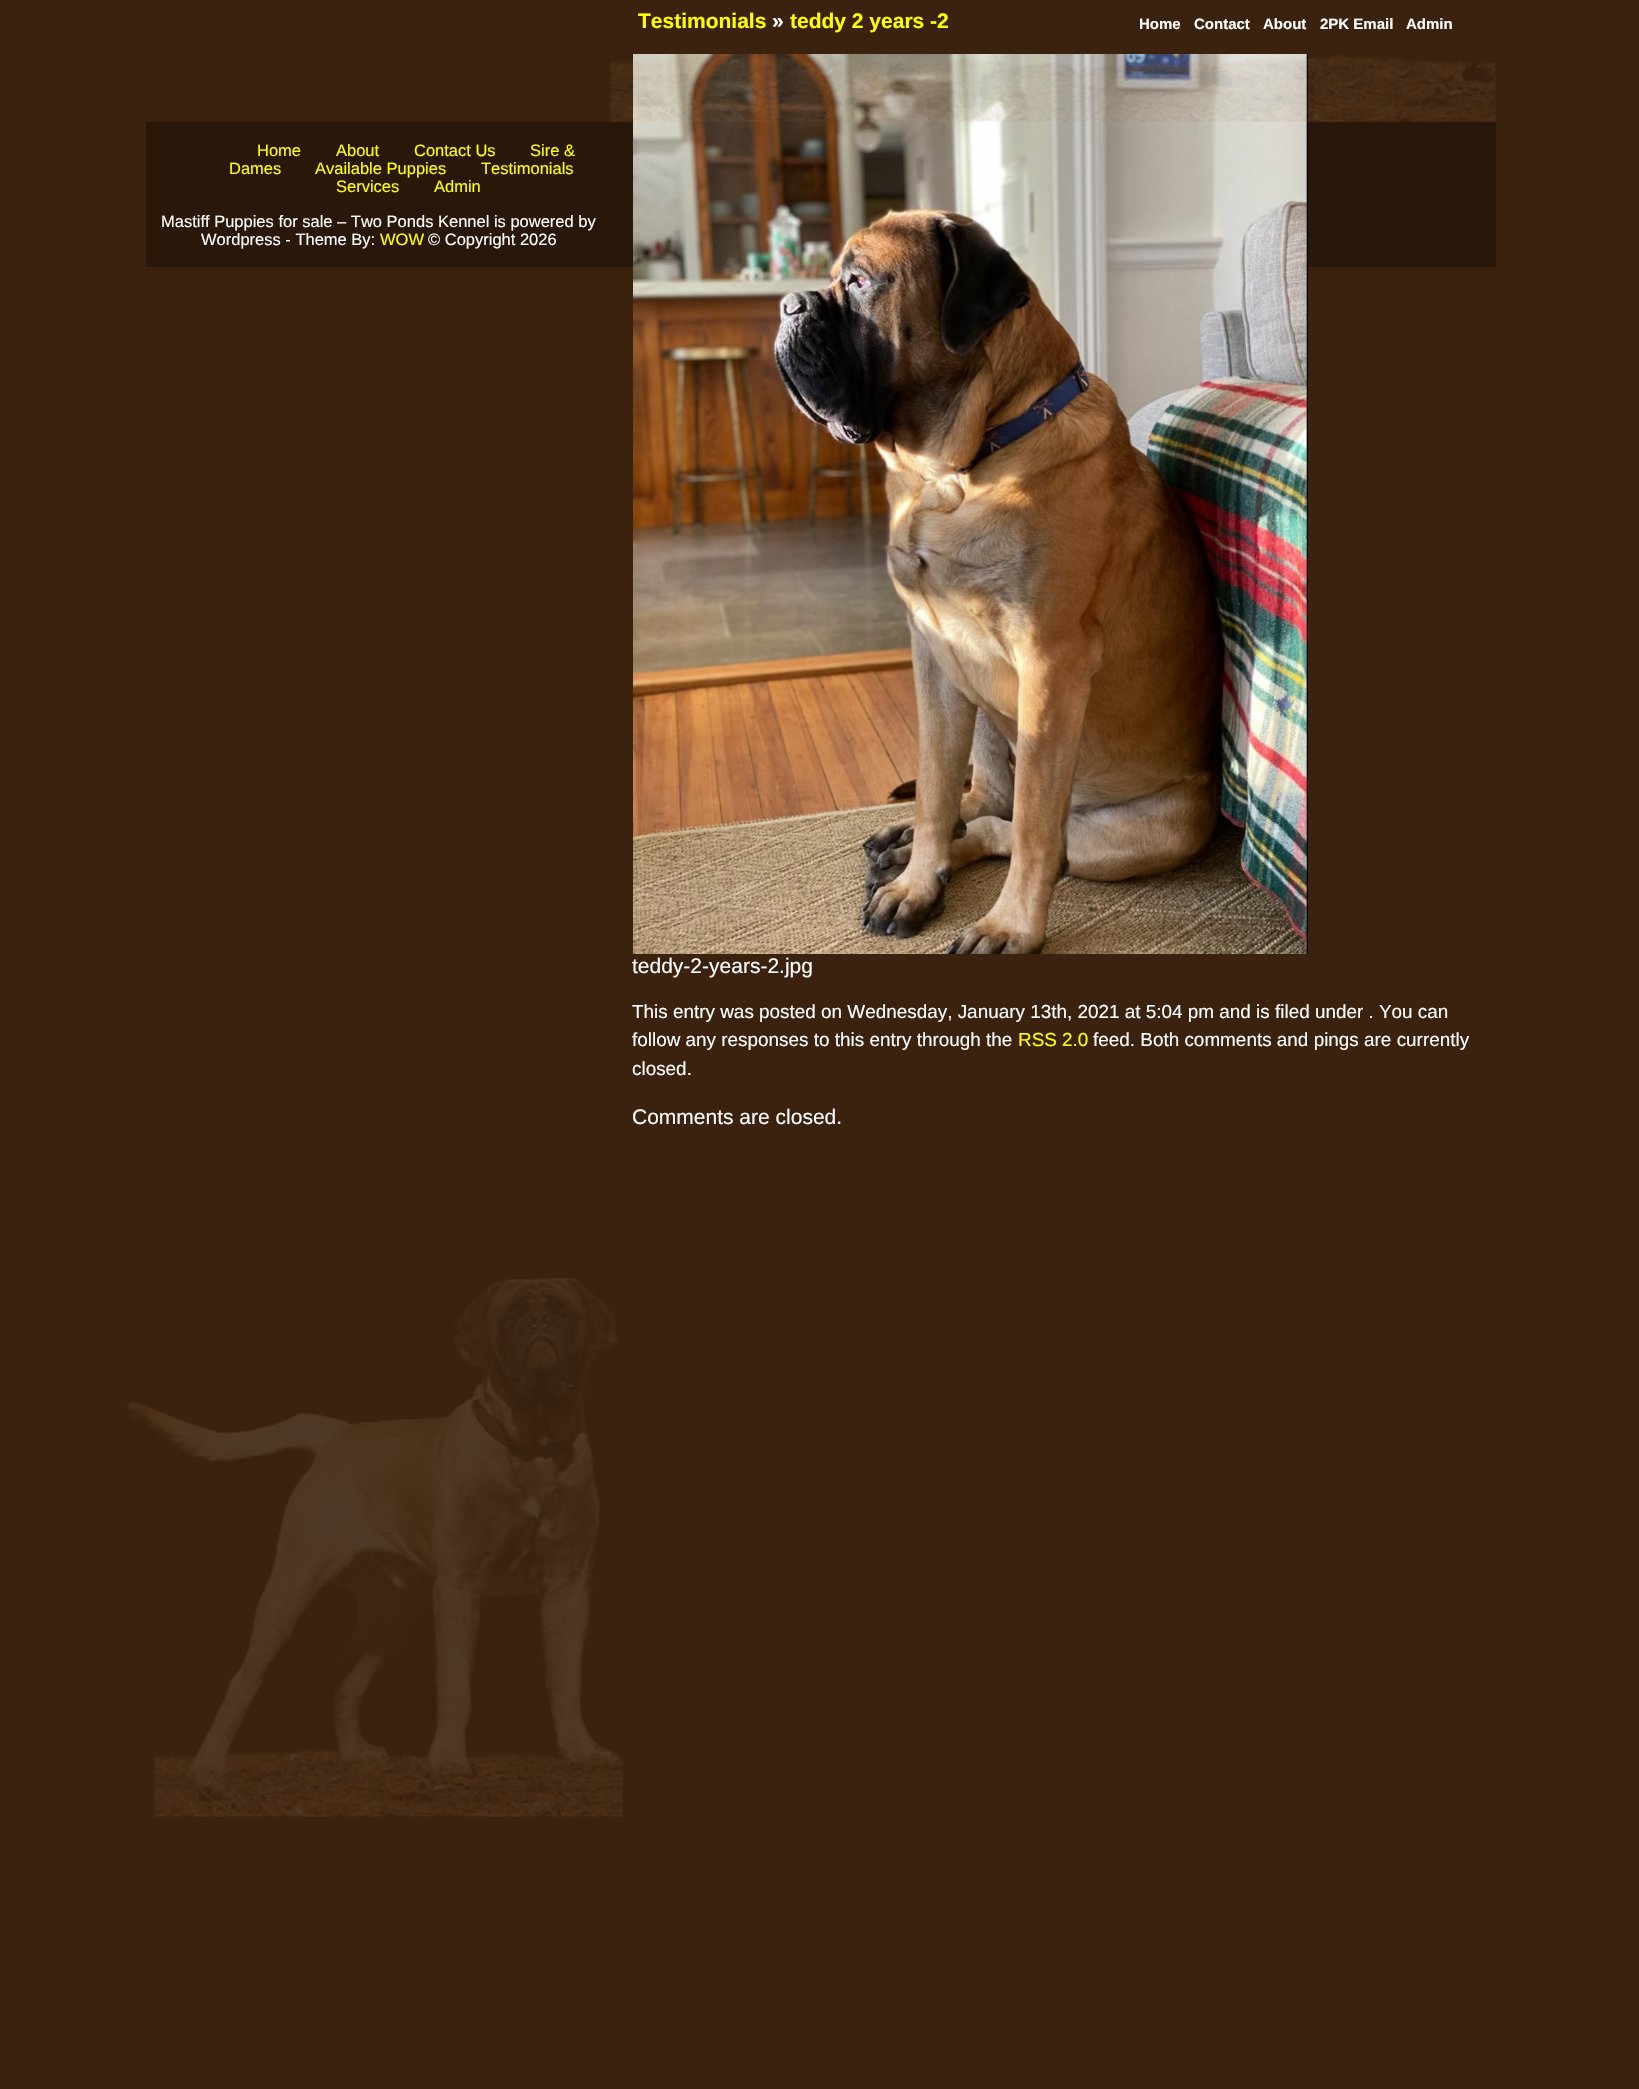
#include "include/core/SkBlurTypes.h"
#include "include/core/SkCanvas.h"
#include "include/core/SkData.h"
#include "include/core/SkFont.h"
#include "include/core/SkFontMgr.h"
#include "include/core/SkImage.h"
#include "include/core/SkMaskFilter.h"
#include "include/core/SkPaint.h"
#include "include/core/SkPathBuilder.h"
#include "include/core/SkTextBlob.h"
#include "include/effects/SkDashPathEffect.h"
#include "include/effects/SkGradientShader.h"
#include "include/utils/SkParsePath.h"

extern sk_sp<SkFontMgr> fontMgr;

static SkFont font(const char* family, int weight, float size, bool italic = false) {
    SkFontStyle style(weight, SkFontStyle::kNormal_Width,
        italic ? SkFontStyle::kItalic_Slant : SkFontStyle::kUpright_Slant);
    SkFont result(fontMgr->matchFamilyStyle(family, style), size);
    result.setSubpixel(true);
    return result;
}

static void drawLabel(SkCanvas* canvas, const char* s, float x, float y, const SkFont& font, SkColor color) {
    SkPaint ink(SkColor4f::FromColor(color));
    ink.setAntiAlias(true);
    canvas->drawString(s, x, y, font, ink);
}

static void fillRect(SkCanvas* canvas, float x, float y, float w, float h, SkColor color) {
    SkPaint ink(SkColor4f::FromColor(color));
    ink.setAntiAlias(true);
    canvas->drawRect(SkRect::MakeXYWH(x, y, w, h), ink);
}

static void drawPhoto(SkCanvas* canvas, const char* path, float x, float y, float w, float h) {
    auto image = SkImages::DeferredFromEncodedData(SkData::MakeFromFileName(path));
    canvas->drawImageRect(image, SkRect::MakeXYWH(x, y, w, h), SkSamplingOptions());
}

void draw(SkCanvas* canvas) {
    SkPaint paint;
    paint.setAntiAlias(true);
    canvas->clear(0xFF3B220E);
    SkFont font1 = font("Liberation Sans", 700, 21);
    drawLabel(canvas, "Testimonials", 638, 28, font1, 0xFFFFFF00);
    drawLabel(canvas, "»", 772, 28, font1, 0xFFFFFFFF);
    drawLabel(canvas, "teddy 2 years -2", 790, 28, font1, 0xFFFFFF00);
    fillRect(canvas, 146, 122, 1350, 145, 0xFF29180A);
    drawPhoto(canvas, "assets/img1.png", 633, 54, 675, 900);
    SkFont font2 = font("Liberation Sans", 400, 21);
    drawLabel(canvas, "teddy-2-years-2.jpg", 632, 973, font2, 0xFFFFFFFF);
    SkFont font3 = font("Liberation Sans", 400, 18.9f);
    drawLabel(canvas, "This entry was posted on Wednesday, January 13th, 2021 at 5:04 pm and is filed under . You can", 632, 1018, font3, 0xFFFFFFFF);
    drawLabel(canvas, "follow any responses to this entry through the", 632, 1046, font3, 0xFFFFFFFF);
    drawLabel(canvas, "RSS 2.0", 1018, 1046, font3, 0xFFFFFF00);
    drawLabel(canvas, "feed. Both comments and pings are currently", 1093, 1046, font3, 0xFFFFFFFF);
    drawLabel(canvas, "closed.", 632, 1075, font3, 0xFFFFFFFF);
    drawLabel(canvas, "Comments are closed.", 632, 1124, font2, 0xFFFFFFFF);
    SkFont font4 = font("Liberation Sans", 700, 15);
    drawLabel(canvas, "Home", 1139, 29, font4, 0xFFFFFFFF);
    drawLabel(canvas, "Contact", 1194, 29, font4, 0xFFFFFFFF);
    drawLabel(canvas, "About", 1263, 29, font4, 0xFFFFFFFF);
    drawLabel(canvas, "2PK Email", 1320, 29, font4, 0xFFFFFFFF);
    drawLabel(canvas, "Admin", 1406, 29, font4, 0xFFFFFFFF);
    drawPhoto(canvas, "assets/img2.png", 610, 55, 886, 67);
    drawPhoto(canvas, "assets/img3.png", 126, 1278, 497, 539);
    SkFont font5 = font("Liberation Sans", 400, 16.5f);
    drawLabel(canvas, "Home", 257, 156, font5, 0xFFFFFF00);
    drawLabel(canvas, "About", 336, 156, font5, 0xFFFFFF00);
    drawLabel(canvas, "Contact Us", 414, 156, font5, 0xFFFFFF00);
    drawLabel(canvas, "Sire &", 530, 156, font5, 0xFFFFFF00);
    drawLabel(canvas, "Dames", 229, 174, font5, 0xFFFFFF00);
    drawLabel(canvas, "Available Puppies", 315, 174, font5, 0xFFFFFF00);
    drawLabel(canvas, "Testimonials", 481, 174, font5, 0xFFFFFF00);
    drawLabel(canvas, "Services", 336, 192, font5, 0xFFFFFF00);
    drawLabel(canvas, "Admin", 434, 192, font5, 0xFFFFFF00);
    drawLabel(canvas, "Mastiff Puppies for sale – Two Ponds Kennel is powered by", 161, 227, font5, 0xFFFFFFFF);
    drawLabel(canvas, "Wordpress - Theme By:", 201, 245, font5, 0xFFFFFFFF);
    drawLabel(canvas, "WOW", 380, 245, font5, 0xFFFFFF00);
    drawLabel(canvas, "© Copyright 2026", 428, 245, font5, 0xFFFFFFFF);
}
